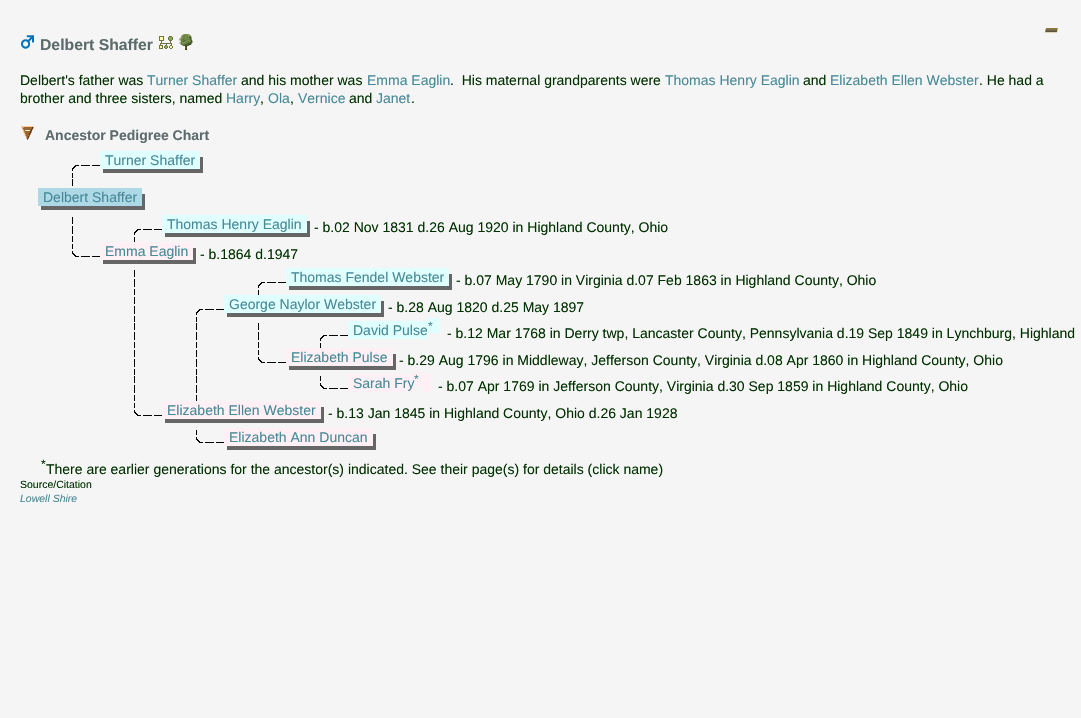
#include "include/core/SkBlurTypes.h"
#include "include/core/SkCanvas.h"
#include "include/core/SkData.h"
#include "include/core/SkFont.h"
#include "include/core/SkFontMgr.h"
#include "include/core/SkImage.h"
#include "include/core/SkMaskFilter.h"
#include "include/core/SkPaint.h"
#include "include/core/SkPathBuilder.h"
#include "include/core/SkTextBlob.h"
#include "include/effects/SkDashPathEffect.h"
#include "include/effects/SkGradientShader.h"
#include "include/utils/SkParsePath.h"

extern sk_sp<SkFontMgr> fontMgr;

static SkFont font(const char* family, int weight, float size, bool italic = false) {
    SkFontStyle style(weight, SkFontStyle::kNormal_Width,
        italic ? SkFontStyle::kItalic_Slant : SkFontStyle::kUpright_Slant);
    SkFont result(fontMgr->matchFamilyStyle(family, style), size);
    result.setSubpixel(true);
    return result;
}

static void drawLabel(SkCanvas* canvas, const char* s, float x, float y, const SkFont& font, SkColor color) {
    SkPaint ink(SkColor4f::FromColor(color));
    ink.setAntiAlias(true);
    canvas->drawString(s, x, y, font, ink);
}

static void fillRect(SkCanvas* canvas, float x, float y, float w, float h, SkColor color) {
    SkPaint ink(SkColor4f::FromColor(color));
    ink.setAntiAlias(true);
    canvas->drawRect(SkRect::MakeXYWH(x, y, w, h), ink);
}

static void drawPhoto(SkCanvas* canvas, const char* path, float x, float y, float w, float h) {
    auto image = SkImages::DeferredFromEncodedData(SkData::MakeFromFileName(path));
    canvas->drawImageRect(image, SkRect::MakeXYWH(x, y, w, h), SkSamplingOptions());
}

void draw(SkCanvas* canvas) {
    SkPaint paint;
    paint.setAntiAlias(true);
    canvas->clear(0xFFF5F5F5);
    drawPhoto(canvas, "assets/img1.png", 1045, 28, 13, 5);
    drawPhoto(canvas, "assets/img2.png", 21, 35, 13, 14);
    SkFont font1 = font("Liberation Sans", 700, 15.75f);
    drawLabel(canvas, "Delbert Shaffer", 40, 50, font1, 0xFF5D6B6C);
    drawPhoto(canvas, "assets/img3.png", 159, 36, 14, 13);
    drawPhoto(canvas, "assets/img4.png", 179, 34, 14, 16);
    SkFont font2 = font("Liberation Sans", 400, 14);
    drawLabel(canvas, "Delbert's father was", 20, 85, font2, 0xFF003000);
    drawLabel(canvas, "Turner Shaffer", 147, 85, font2, 0xFF478997);
    drawLabel(canvas, "and his mother was", 241, 85, font2, 0xFF003000);
    drawLabel(canvas, "Emma Eaglin", 367, 85, font2, 0xFF478997);
    drawLabel(canvas, ".  His maternal grandparents were", 450, 85, font2, 0xFF003000);
    drawLabel(canvas, "Thomas Henry Eaglin", 665, 85, font2, 0xFF478997);
    drawLabel(canvas, "and", 803, 85, font2, 0xFF003000);
    drawLabel(canvas, "Elizabeth Ellen Webster", 830, 85, font2, 0xFF478997);
    drawLabel(canvas, ". He had a", 979, 85, font2, 0xFF003000);
    drawLabel(canvas, "brother and three sisters, named", 20, 103, font2, 0xFF003000);
    drawLabel(canvas, "Harry", 226, 103, font2, 0xFF478997);
    drawLabel(canvas, ",", 260, 103, font2, 0xFF003000);
    drawLabel(canvas, "Ola", 268, 103, font2, 0xFF478997);
    drawLabel(canvas, ",", 290, 103, font2, 0xFF003000);
    drawLabel(canvas, "Vernice", 298, 103, font2, 0xFF478997);
    drawLabel(canvas, "and", 349, 103, font2, 0xFF003000);
    drawLabel(canvas, "Janet", 376, 103, font2, 0xFF478997);
    drawLabel(canvas, ".", 411, 103, font2, 0xFF003000);
    drawPhoto(canvas, "assets/img5.png", 21, 126, 13, 14);
    SkFont font3 = font("Liberation Sans", 700, 14);
    drawLabel(canvas, "Ancestor Pedigree Chart", 45, 140, font3, 0xFF5D6B6C);
    fillRect(canvas, 103, 157, 100, 16, 0xFF666666);
    fillRect(canvas, 100, 151, 100, 18, 0xFFE0FFFF);
    drawLabel(canvas, "Turner Shaffer", 105, 165, font2, 0xFF478997);
    drawPhoto(canvas, "assets/img6.png", 72, 165, 28, 13);
    drawPhoto(canvas, "assets/img7.png", 72, 179, 1, 7);
    fillRect(canvas, 41, 194, 104, 16, 0xFF666666);
    fillRect(canvas, 38, 188, 104, 18, 0xFFADD8E6);
    drawLabel(canvas, "Delbert Shaffer", 43, 202, font2, 0xFF478997);
    drawPhoto(canvas, "assets/img8.png", 72, 217, 1, 25);
    drawPhoto(canvas, "assets/img6.png", 134, 229, 28, 13);
    fillRect(canvas, 165, 221, 145, 16, 0xFF666666);
    fillRect(canvas, 162, 215, 145, 18, 0xFFE0FFFF);
    drawLabel(canvas, "Thomas Henry Eaglin", 167, 229, font2, 0xFF478997);
    drawLabel(canvas, "- b.02 Nov 1831 d.26 Aug 1920 in Highland County, Ohio", 314, 232, font2, 0xFF003000);
    drawPhoto(canvas, "assets/img9.png", 72, 244, 28, 13);
    fillRect(canvas, 103, 248, 93, 16, 0xFF666666);
    fillRect(canvas, 100, 242, 93, 18, 0xFFFFF0F5);
    drawLabel(canvas, "Emma Eaglin", 105, 256, font2, 0xFF478997);
    drawLabel(canvas, "- b.1864 d.1947", 200, 259, font2, 0xFF003000);
    drawPhoto(canvas, "assets/img8.png", 134, 270, 1, 25);
    drawPhoto(canvas, "assets/img6.png", 258, 282, 28, 13);
    fillRect(canvas, 289, 274, 163, 16, 0xFF666666);
    fillRect(canvas, 286, 268, 163, 18, 0xFFE0FFFF);
    drawLabel(canvas, "Thomas Fendel Webster", 291, 282, font2, 0xFF478997);
    drawLabel(canvas, "- b.07 May 1790 in Virginia d.07 Feb 1863 in Highland County, Ohio", 456, 285, font2, 0xFF003000);
    drawPhoto(canvas, "assets/img8.png", 134, 297, 1, 25);
    drawPhoto(canvas, "assets/img6.png", 196, 309, 28, 13);
    fillRect(canvas, 227, 301, 157, 16, 0xFF666666);
    fillRect(canvas, 224, 295, 157, 18, 0xFFE0FFFF);
    drawLabel(canvas, "George Naylor Webster", 229, 309, font2, 0xFF478997);
    drawLabel(canvas, "- b.28 Aug 1820 d.25 May 1897", 388, 312, font2, 0xFF003000);
    drawPhoto(canvas, "assets/img8.png", 134, 323, 1, 25);
    drawPhoto(canvas, "assets/img8.png", 196, 323, 1, 25);
    drawPhoto(canvas, "assets/img8.png", 258, 323, 1, 25);
    drawPhoto(canvas, "assets/img6.png", 320, 335, 28, 13);
    fillRect(canvas, 348, 321, 80, 18, 0xFFE0FFFF);
    drawLabel(canvas, "David Pulse", 353, 335, font2, 0xFF478997);
    fillRect(canvas, 428, 318, 12, 15, 0xFFE0FFFF);
    SkFont font4 = font("Liberation Sans", 400, 12);
    drawLabel(canvas, "*", 428, 330, font4, 0xFF478997);
    drawLabel(canvas, "- b.12 Mar 1768 in Derry twp, Lancaster County, Pennsylvania d.19 Sep 1849 in Lynchburg, Highland", 447, 338, font2, 0xFF003000);
    drawPhoto(canvas, "assets/img8.png", 134, 350, 1, 25);
    drawPhoto(canvas, "assets/img8.png", 196, 350, 1, 25);
    drawPhoto(canvas, "assets/img9.png", 258, 350, 28, 13);
    fillRect(canvas, 289, 354, 107, 16, 0xFF666666);
    fillRect(canvas, 286, 348, 107, 18, 0xFFFFF0F5);
    drawLabel(canvas, "Elizabeth Pulse", 291, 362, font2, 0xFF478997);
    drawLabel(canvas, "- b.29 Aug 1796 in Middleway, Jefferson County, Virginia d.08 Apr 1860 in Highland County, Ohio", 399, 365, font2, 0xFF003000);
    drawPhoto(canvas, "assets/img8.png", 134, 376, 1, 25);
    drawPhoto(canvas, "assets/img8.png", 196, 376, 1, 25);
    drawPhoto(canvas, "assets/img9.png", 320, 376, 28, 13);
    fillRect(canvas, 348, 374, 66, 18, 0xFFFFF0F5);
    fillRect(canvas, 414, 371, 8, 15, 0xFFFFF0F5);
    drawLabel(canvas, "Sarah Fry", 353, 388, font2, 0xFF478997);
    fillRect(canvas, 422, 374, 9, 18, 0xFFFFF0F5);
    drawLabel(canvas, "*", 414, 383, font4, 0xFF478997);
    drawLabel(canvas, "- b.07 Apr 1769 in Jefferson County, Virginia d.30 Sep 1859 in Highland County, Ohio", 438, 391, font2, 0xFF003000);
    drawPhoto(canvas, "assets/img9.png", 134, 403, 28, 13);
    fillRect(canvas, 165, 407, 159, 16, 0xFF666666);
    fillRect(canvas, 162, 401, 159, 18, 0xFFFFF0F5);
    drawLabel(canvas, "Elizabeth Ellen Webster", 167, 415, font2, 0xFF478997);
    drawLabel(canvas, "- b.13 Jan 1845 in Highland County, Ohio d.26 Jan 1928", 328, 418, font2, 0xFF003000);
    drawPhoto(canvas, "assets/img9.png", 196, 430, 28, 13);
    fillRect(canvas, 227, 434, 149, 16, 0xFF666666);
    fillRect(canvas, 224, 428, 149, 18, 0xFFFFF0F5);
    drawLabel(canvas, "Elizabeth Ann Duncan", 229, 442, font2, 0xFF478997);
    drawLabel(canvas, "*", 41, 468, font4, 0xFF003000);
    drawLabel(canvas, "There are earlier generations for the ancestor(s) indicated. See their page(s) for details (click name)", 46, 474, font2, 0xFF003000);
    SkFont font5 = font("Liberation Sans", 400, 10.5f);
    drawLabel(canvas, "Source/Citation", 20, 488, font5, 0xFF003000);
    SkFont font6 = font("Liberation Sans", 400, 10.5f, true);
    drawLabel(canvas, "Lowell Shire", 20, 502, font6, 0xFF478997);
}
